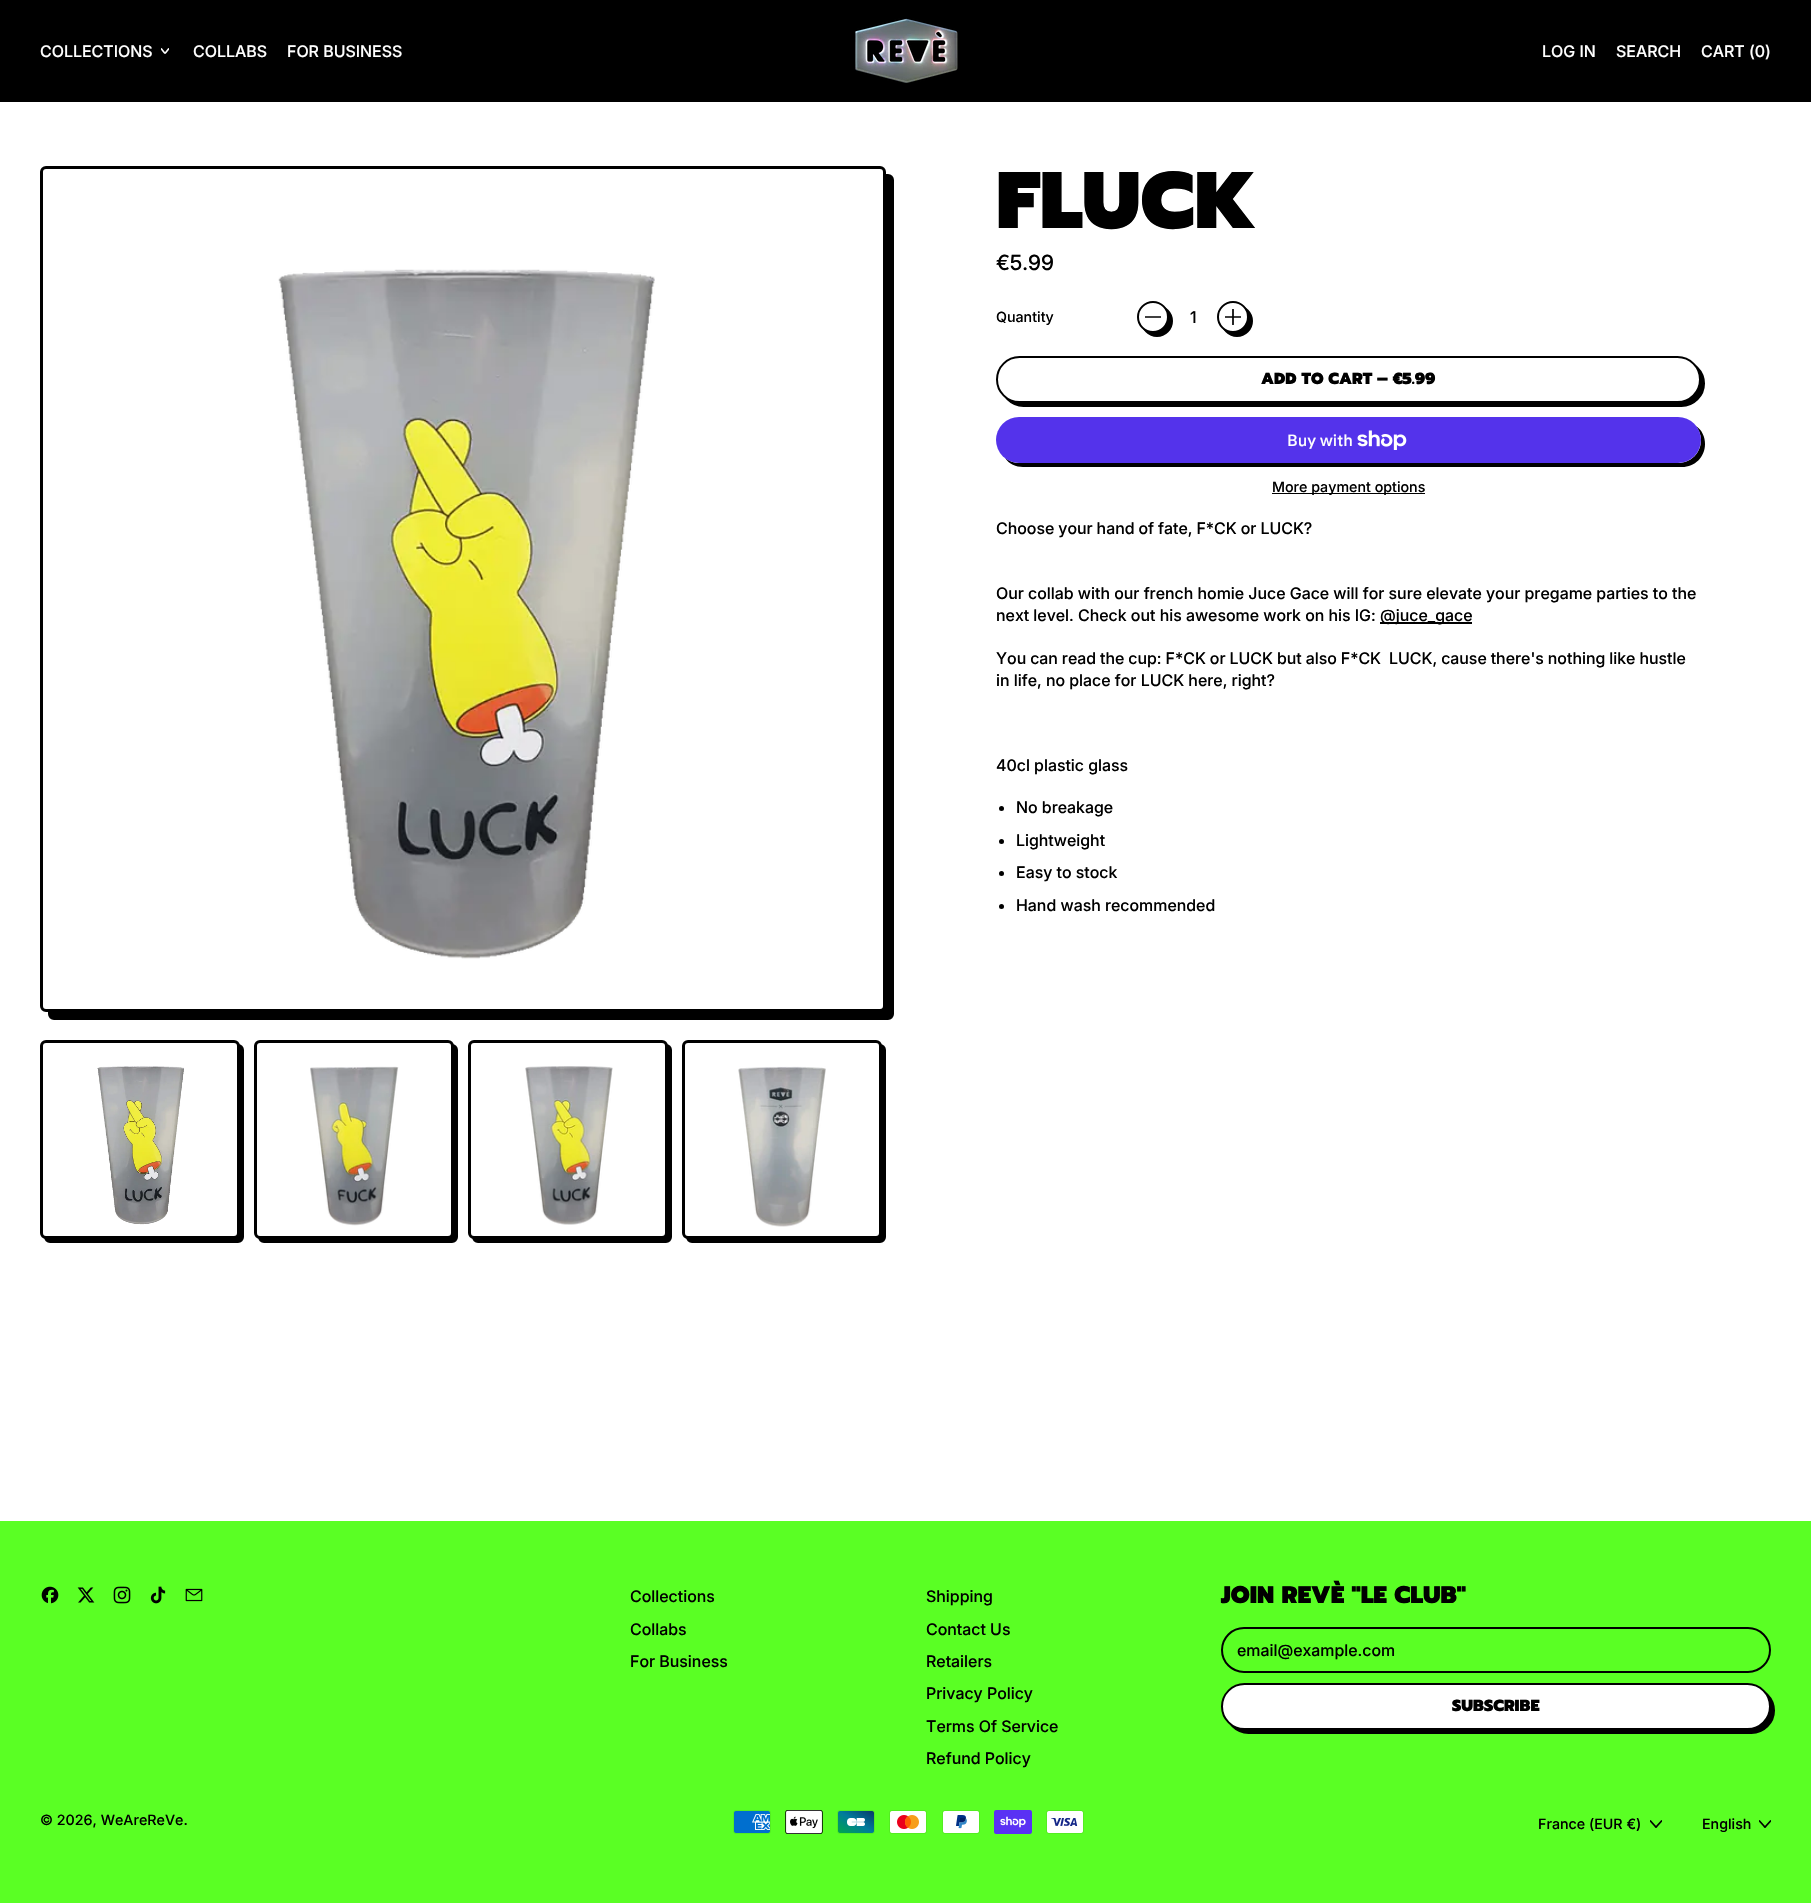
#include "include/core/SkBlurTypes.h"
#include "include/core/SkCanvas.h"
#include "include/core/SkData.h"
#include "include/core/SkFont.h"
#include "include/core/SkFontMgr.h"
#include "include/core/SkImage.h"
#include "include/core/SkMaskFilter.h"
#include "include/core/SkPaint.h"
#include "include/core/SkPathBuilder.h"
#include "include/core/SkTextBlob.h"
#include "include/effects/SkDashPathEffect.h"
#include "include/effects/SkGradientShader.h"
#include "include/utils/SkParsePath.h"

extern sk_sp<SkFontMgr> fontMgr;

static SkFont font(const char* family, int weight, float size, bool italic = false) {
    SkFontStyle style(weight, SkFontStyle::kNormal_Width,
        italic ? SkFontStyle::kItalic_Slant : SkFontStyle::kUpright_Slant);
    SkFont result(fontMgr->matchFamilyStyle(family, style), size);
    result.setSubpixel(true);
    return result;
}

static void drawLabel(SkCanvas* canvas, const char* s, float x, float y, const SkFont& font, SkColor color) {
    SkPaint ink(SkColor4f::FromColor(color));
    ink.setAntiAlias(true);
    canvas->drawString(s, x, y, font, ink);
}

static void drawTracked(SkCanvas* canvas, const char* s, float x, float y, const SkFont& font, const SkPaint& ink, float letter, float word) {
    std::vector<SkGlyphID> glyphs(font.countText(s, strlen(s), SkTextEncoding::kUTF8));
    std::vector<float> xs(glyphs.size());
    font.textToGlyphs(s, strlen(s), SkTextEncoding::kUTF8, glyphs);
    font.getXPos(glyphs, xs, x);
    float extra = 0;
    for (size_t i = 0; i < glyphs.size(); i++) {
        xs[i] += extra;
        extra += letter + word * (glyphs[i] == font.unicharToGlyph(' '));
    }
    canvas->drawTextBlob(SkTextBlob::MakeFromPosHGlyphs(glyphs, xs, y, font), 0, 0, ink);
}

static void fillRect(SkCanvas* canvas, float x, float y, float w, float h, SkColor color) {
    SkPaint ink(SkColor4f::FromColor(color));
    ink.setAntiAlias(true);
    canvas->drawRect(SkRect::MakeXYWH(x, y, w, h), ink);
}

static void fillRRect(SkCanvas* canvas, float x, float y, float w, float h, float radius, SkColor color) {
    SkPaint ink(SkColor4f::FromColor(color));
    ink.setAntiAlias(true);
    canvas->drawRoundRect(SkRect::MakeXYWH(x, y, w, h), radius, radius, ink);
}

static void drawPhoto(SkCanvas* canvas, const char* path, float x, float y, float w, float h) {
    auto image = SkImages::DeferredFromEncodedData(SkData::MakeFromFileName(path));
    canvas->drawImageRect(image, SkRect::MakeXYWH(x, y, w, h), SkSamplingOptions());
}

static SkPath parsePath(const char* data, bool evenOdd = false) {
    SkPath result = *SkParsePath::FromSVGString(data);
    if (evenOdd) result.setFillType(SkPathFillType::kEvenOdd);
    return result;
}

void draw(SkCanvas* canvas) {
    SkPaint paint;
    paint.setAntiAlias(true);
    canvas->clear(0xFFFFFFFF);
    fillRect(canvas, 0, 0, 1811, 102, 0xFF000000);
    SkFont font1 = font("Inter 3", 500, 16);
    drawLabel(canvas, "COLLECTIONS", 40, 57, font1, 0xFFFFFFFF);
    canvas->save();
    canvas->clipRect(SkRect::MakeXYWH(161, 47, 8, 8));
    paint.setStroke(true);
    paint.setStrokeWidth(1.7f);
    paint.setStrokeCap(SkPaint::kRound_Cap);
    paint.setStrokeJoin(SkPaint::kRound_Join);
    paint.setColor(0xFFFFFFFF);
    canvas->drawPath(parsePath("M161.5 49C166 54.5 164 54.5 168.5 49"), paint);
    canvas->restore();
    drawLabel(canvas, "COLLABS", 193, 57, font1, 0xFFFFFFFF);
    drawLabel(canvas, "FOR BUSINESS", 287, 57, font1, 0xFFFFFFFF);
    drawPhoto(canvas, "assets/img1.png", 855, 18, 103, 65);
    drawLabel(canvas, "LOG IN", 1542, 57, font1, 0xFFFFFFFF);
    drawLabel(canvas, "SEARCH", 1616, 57, font1, 0xFFFFFFFF);
    drawLabel(canvas, "CART (0)", 1701, 57, font1, 0xFFFFFFFF);
    paint.setStroke(false);
    paint.setColor(0xFF000000);
    canvas->drawRoundRect(SkRect::MakeXYWH(49.5f, 175.5f, 843, 843), 4.5f, 4.5f, paint);
    paint.setStroke(true);
    paint.setStrokeWidth(3);
    paint.setStrokeCap(SkPaint::kButt_Cap);
    paint.setStrokeJoin(SkPaint::kMiter_Join);
    canvas->drawRoundRect(SkRect::MakeXYWH(49.5f, 175.5f, 843, 843), 4.5f, 4.5f, paint);
    paint.setStroke(false);
    paint.setColor(0xFFFFFFFF);
    canvas->drawRoundRect(SkRect::MakeXYWH(41.5f, 167.5f, 843, 843), 4.5f, 4.5f, paint);
    paint.setStroke(true);
    paint.setColor(0xFF000000);
    canvas->drawRoundRect(SkRect::MakeXYWH(41.5f, 167.5f, 843, 843), 4.5f, 4.5f, paint);
    drawPhoto(canvas, "assets/img2.png", 278, 269, 377, 690);
    paint.setStroke(false);
    canvas->drawRoundRect(SkRect::MakeXYWH(45.5f, 1045.5f, 197, 196), 4.5f, 4.5f, paint);
    paint.setStroke(true);
    canvas->drawRoundRect(SkRect::MakeXYWH(45.5f, 1045.5f, 197, 196), 4.5f, 4.5f, paint);
    paint.setStroke(false);
    paint.setColor(0xFFFFFFFF);
    canvas->drawRoundRect(SkRect::MakeXYWH(41.5f, 1041.5f, 197, 196), 4.5f, 4.5f, paint);
    paint.setStroke(true);
    paint.setColor(0xFF000000);
    canvas->drawRoundRect(SkRect::MakeXYWH(41.5f, 1041.5f, 197, 196), 4.5f, 4.5f, paint);
    drawPhoto(canvas, "assets/img3.png", 97, 1066, 87, 159);
    paint.setStroke(false);
    canvas->drawRoundRect(SkRect::MakeXYWH(259.5f, 1045.5f, 197, 196), 4.5f, 4.5f, paint);
    paint.setStroke(true);
    canvas->drawRoundRect(SkRect::MakeXYWH(259.5f, 1045.5f, 197, 196), 4.5f, 4.5f, paint);
    paint.setStroke(false);
    paint.setColor(0xFFFFFFFF);
    canvas->drawRoundRect(SkRect::MakeXYWH(255.5f, 1041.5f, 197, 196), 4.5f, 4.5f, paint);
    paint.setStroke(true);
    paint.setColor(0xFF000000);
    canvas->drawRoundRect(SkRect::MakeXYWH(255.5f, 1041.5f, 197, 196), 4.5f, 4.5f, paint);
    drawPhoto(canvas, "assets/img4.png", 310, 1066, 89, 160);
    paint.setStroke(false);
    canvas->drawRoundRect(SkRect::MakeXYWH(473.5f, 1045.5f, 197, 196), 4.5f, 4.5f, paint);
    paint.setStroke(true);
    canvas->drawRoundRect(SkRect::MakeXYWH(473.5f, 1045.5f, 197, 196), 4.5f, 4.5f, paint);
    paint.setStroke(false);
    paint.setColor(0xFFFFFFFF);
    canvas->drawRoundRect(SkRect::MakeXYWH(469.5f, 1041.5f, 197, 196), 4.5f, 4.5f, paint);
    paint.setStroke(true);
    paint.setColor(0xFF000000);
    canvas->drawRoundRect(SkRect::MakeXYWH(469.5f, 1041.5f, 197, 196), 4.5f, 4.5f, paint);
    drawPhoto(canvas, "assets/img5.png", 525, 1066, 88, 159);
    paint.setStroke(false);
    canvas->drawRoundRect(SkRect::MakeXYWH(687.5f, 1045.5f, 197, 196), 4.5f, 4.5f, paint);
    paint.setStroke(true);
    canvas->drawRoundRect(SkRect::MakeXYWH(687.5f, 1045.5f, 197, 196), 4.5f, 4.5f, paint);
    paint.setStroke(false);
    paint.setColor(0xFFFFFFFF);
    canvas->drawRoundRect(SkRect::MakeXYWH(683.5f, 1041.5f, 197, 196), 4.5f, 4.5f, paint);
    paint.setStroke(true);
    paint.setColor(0xFF000000);
    canvas->drawRoundRect(SkRect::MakeXYWH(683.5f, 1041.5f, 197, 196), 4.5f, 4.5f, paint);
    drawPhoto(canvas, "assets/img6.png", 738, 1066, 88, 161);
    SkFont font2 = font("Prompt", 900, 80);
    drawLabel(canvas, "FLUCK", 996, 228, font2, 0xFF000000);
    SkFont font3 = font("Inter", 500, 21);
    drawLabel(canvas, "€5.99", 996, 270, font3, 0xFF000000);
    SkFont font4 = font("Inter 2", 500, 14.25f);
    drawLabel(canvas, "Quantity", 996, 322, font4, 0xFF000000);
    paint.setStroke(false);
    canvas->drawCircle(1157, 321, 15, paint);
    paint.setStroke(true);
    paint.setStrokeWidth(2);
    canvas->drawCircle(1157, 321, 15, paint);
    paint.setStroke(false);
    paint.setColor(0xFFFFFFFF);
    canvas->drawCircle(1153, 317, 15, paint);
    paint.setStroke(true);
    paint.setColor(0xFF000000);
    canvas->drawCircle(1153, 317, 15, paint);
    canvas->save();
    canvas->clipRect(SkRect::MakeXYWH(1145, 309, 16, 16));
    paint.setStrokeWidth(1.7f);
    paint.setStrokeCap(SkPaint::kRound_Cap);
    paint.setStrokeJoin(SkPaint::kRound_Join);
    canvas->drawPath(parsePath("M1160.5 317H1145.5"), paint);
    canvas->restore();
    drawLabel(canvas, "1", 1190, 323, font1, 0xFF000000);
    paint.setStroke(false);
    canvas->drawCircle(1237, 321, 15, paint);
    paint.setStroke(true);
    paint.setStrokeWidth(2);
    paint.setStrokeCap(SkPaint::kButt_Cap);
    paint.setStrokeJoin(SkPaint::kMiter_Join);
    canvas->drawCircle(1237, 321, 15, paint);
    paint.setStroke(false);
    paint.setColor(0xFFFFFFFF);
    canvas->drawCircle(1233, 317, 15, paint);
    paint.setStroke(true);
    paint.setColor(0xFF000000);
    canvas->drawCircle(1233, 317, 15, paint);
    canvas->save();
    canvas->clipRect(SkRect::MakeXYWH(1225, 309, 16, 16));
    paint.setStrokeWidth(1.7f);
    paint.setStrokeCap(SkPaint::kRound_Cap);
    paint.setStrokeJoin(SkPaint::kRound_Join);
    canvas->drawPath(parsePath("M1233 309.5V324.5M1240.5 317H1225.5"), paint);
    canvas->restore();
    paint.setStroke(false);
    canvas->drawRoundRect(SkRect::MakeXYWH(1001, 361, 703, 45), 22.5f, 22.5f, paint);
    paint.setStroke(true);
    paint.setStrokeWidth(2);
    paint.setStrokeCap(SkPaint::kButt_Cap);
    paint.setStrokeJoin(SkPaint::kMiter_Join);
    canvas->drawRoundRect(SkRect::MakeXYWH(1001, 361, 703, 45), 22.5f, 22.5f, paint);
    paint.setStroke(false);
    paint.setColor(0xFFFFFFFF);
    canvas->drawRoundRect(SkRect::MakeXYWH(997, 357, 703, 45), 22.5f, 22.5f, paint);
    paint.setStroke(true);
    paint.setColor(0xFF000000);
    canvas->drawRoundRect(SkRect::MakeXYWH(997, 357, 703, 45), 22.5f, 22.5f, paint);
    SkFont font5 = font("Prompt", 900, 16);
    drawLabel(canvas, "ADD TO CART – €5.99", 1261, 384, font5, 0xFF000000);
    paint.setStroke(false);
    canvas->drawPath(parsePath("M1005 458C1009 464 1016 467 1023 467H1682C1695 467 1705 457 1705 444C1705 437 1702 430 1696 426C1699 430 1701 435 1701 440C1701 453 1691 463 1678 463H1019C1014 463 1009 461 1005 458Z"), paint);
    fillRRect(canvas, 996, 417, 705, 46, 23, 0xFF5433EB);
    SkFont font6 = font("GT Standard", 500, 16);
    drawLabel(canvas, "Buy with", 1287, 446, font6, 0xFFFFFFFF);
    drawPhoto(canvas, "assets/img7.png", 1357, 430, 50, 20);
    fillRect(canvas, 1272, 493, 153, 1, 0xFF000000);
    drawLabel(canvas, "More payment options", 1272, 492, font4, 0xFF000000);
    drawTracked(canvas, "Choose your hand of fate, F*CK or LUCK?", 996, 534, font1, paint, 0, -0.25f);
    drawLabel(canvas, "Our collab with our french homie Juce Gace will for sure elevate your pregame parties to the", 996, 599, font1, 0xFF000000);
    drawLabel(canvas, "next level. Check out his awesome work on his IG:", 996, 621, font1, 0xFF000000);
    fillRect(canvas, 1380, 622, 92, 2, 0xFF000000);
    drawLabel(canvas, "@juce_gace", 1380, 621, font1, 0xFF000000);
    drawTracked(canvas, "You can read the cup: F*CK or LUCK but also F*CK", 996, 664, font1, paint, 0, -0.25f);
    drawTracked(canvas, "LUCK, cause there's nothing like hustle", 1389, 664, font1, paint, 0, -0.25f);
    drawLabel(canvas, "in life, no place for LUCK here, right?", 996, 686, font1, 0xFF000000);
    drawLabel(canvas, "40cl plastic glass", 996, 771, font1, 0xFF000000);
    canvas->drawCircle(1001.5f, 808.5f, 2.5f, paint);
    drawLabel(canvas, "No breakage", 1016, 813, font1, 0xFF000000);
    canvas->drawCircle(1001.5f, 841.5f, 2.5f, paint);
    drawLabel(canvas, "Lightweight", 1016, 846, font1, 0xFF000000);
    canvas->drawCircle(1001.5f, 873.5f, 2.5f, paint);
    drawLabel(canvas, "Easy to stock", 1016, 878, font1, 0xFF000000);
    canvas->drawCircle(1001.5f, 906.5f, 2.5f, paint);
    drawLabel(canvas, "Hand wash recommended", 1016, 911, font1, 0xFF000000);
    fillRect(canvas, 0, 1521, 1811, 382, 0xFF5AFF24);
    drawPhoto(canvas, "assets/img8.png", 41, 1586, 18, 18);
    drawPhoto(canvas, "assets/img9.png", 77, 1587, 18, 16);
    drawPhoto(canvas, "assets/img10.png", 113, 1586, 18, 18);
    drawPhoto(canvas, "assets/img11.png", 150, 1586, 16, 18);
    drawPhoto(canvas, "assets/img12.png", 185, 1588, 18, 14);
    drawLabel(canvas, "Collections", 630, 1602, font1, 0xFF000000);
    drawLabel(canvas, "Collabs", 630, 1635, font1, 0xFF000000);
    drawLabel(canvas, "For Business", 630, 1667, font1, 0xFF000000);
    drawLabel(canvas, "Shipping", 926, 1602, font1, 0xFF000000);
    drawLabel(canvas, "Contact Us", 926, 1635, font1, 0xFF000000);
    drawLabel(canvas, "Retailers", 926, 1667, font1, 0xFF000000);
    drawLabel(canvas, "Privacy Policy", 926, 1699, font1, 0xFF000000);
    drawLabel(canvas, "Terms Of Service", 926, 1732, font1, 0xFF000000);
    drawLabel(canvas, "Refund Policy", 926, 1764, font1, 0xFF000000);
    SkFont font7 = font("Prompt", 900, 24);
    drawLabel(canvas, "JOIN REVÈ \"LE CLUB\"", 1221, 1603, font7, 0xFF000000);
    paint.setStroke(true);
    canvas->drawRoundRect(SkRect::MakeXYWH(1222, 1628, 548, 44), 22, 22, paint);
    drawLabel(canvas, "email@example.com", 1237, 1656, font1, 0xFF000000);
    paint.setStroke(false);
    canvas->drawRoundRect(SkRect::MakeXYWH(1226, 1688, 548, 45), 22.5f, 22.5f, paint);
    paint.setStroke(true);
    canvas->drawRoundRect(SkRect::MakeXYWH(1226, 1688, 548, 45), 22.5f, 22.5f, paint);
    paint.setStroke(false);
    paint.setColor(0xFFFFFFFF);
    canvas->drawRoundRect(SkRect::MakeXYWH(1222, 1684, 548, 45), 22.5f, 22.5f, paint);
    paint.setStroke(true);
    paint.setColor(0xFF000000);
    canvas->drawRoundRect(SkRect::MakeXYWH(1222, 1684, 548, 45), 22.5f, 22.5f, paint);
    drawLabel(canvas, "SUBSCRIBE", 1452, 1711, font5, 0xFF000000);
    drawLabel(canvas, "© 2026, WeAreReVe.", 40, 1825, font4, 0xFF000000);
    drawPhoto(canvas, "assets/img13.png", 733, 1810, 38, 24);
    drawPhoto(canvas, "assets/img14.png", 785, 1810, 38, 24);
    drawPhoto(canvas, "assets/img15.png", 837, 1810, 38, 24);
    drawPhoto(canvas, "assets/img16.png", 889, 1810, 38, 24);
    drawPhoto(canvas, "assets/img17.png", 942, 1810, 38, 24);
    drawPhoto(canvas, "assets/img18.png", 994, 1810, 38, 24);
    drawPhoto(canvas, "assets/img19.png", 1046, 1810, 38, 24);
    drawLabel(canvas, "France (EUR €)", 1538, 1829, font4, 0xFF000000);
    canvas->save();
    canvas->clipRect(SkRect::MakeXYWH(1650, 1818, 12, 12));
    paint.setStrokeWidth(1.7f);
    paint.setStrokeCap(SkPaint::kRound_Cap);
    paint.setStrokeJoin(SkPaint::kRound_Join);
    canvas->drawPath(parsePath("M1650.5 1821L1655 1826C1656 1827.5 1656 1827.5 1657 1826L1661.5 1821"), paint);
    canvas->restore();
    drawLabel(canvas, "English", 1702, 1829, font4, 0xFF000000);
    canvas->save();
    canvas->clipRect(SkRect::MakeXYWH(1759, 1818, 12, 12));
    canvas->drawPath(parsePath("M1759.5 1821L1764 1826C1765 1827.5 1765 1827.5 1766 1826L1770.5 1821"), paint);
    canvas->restore();
}
